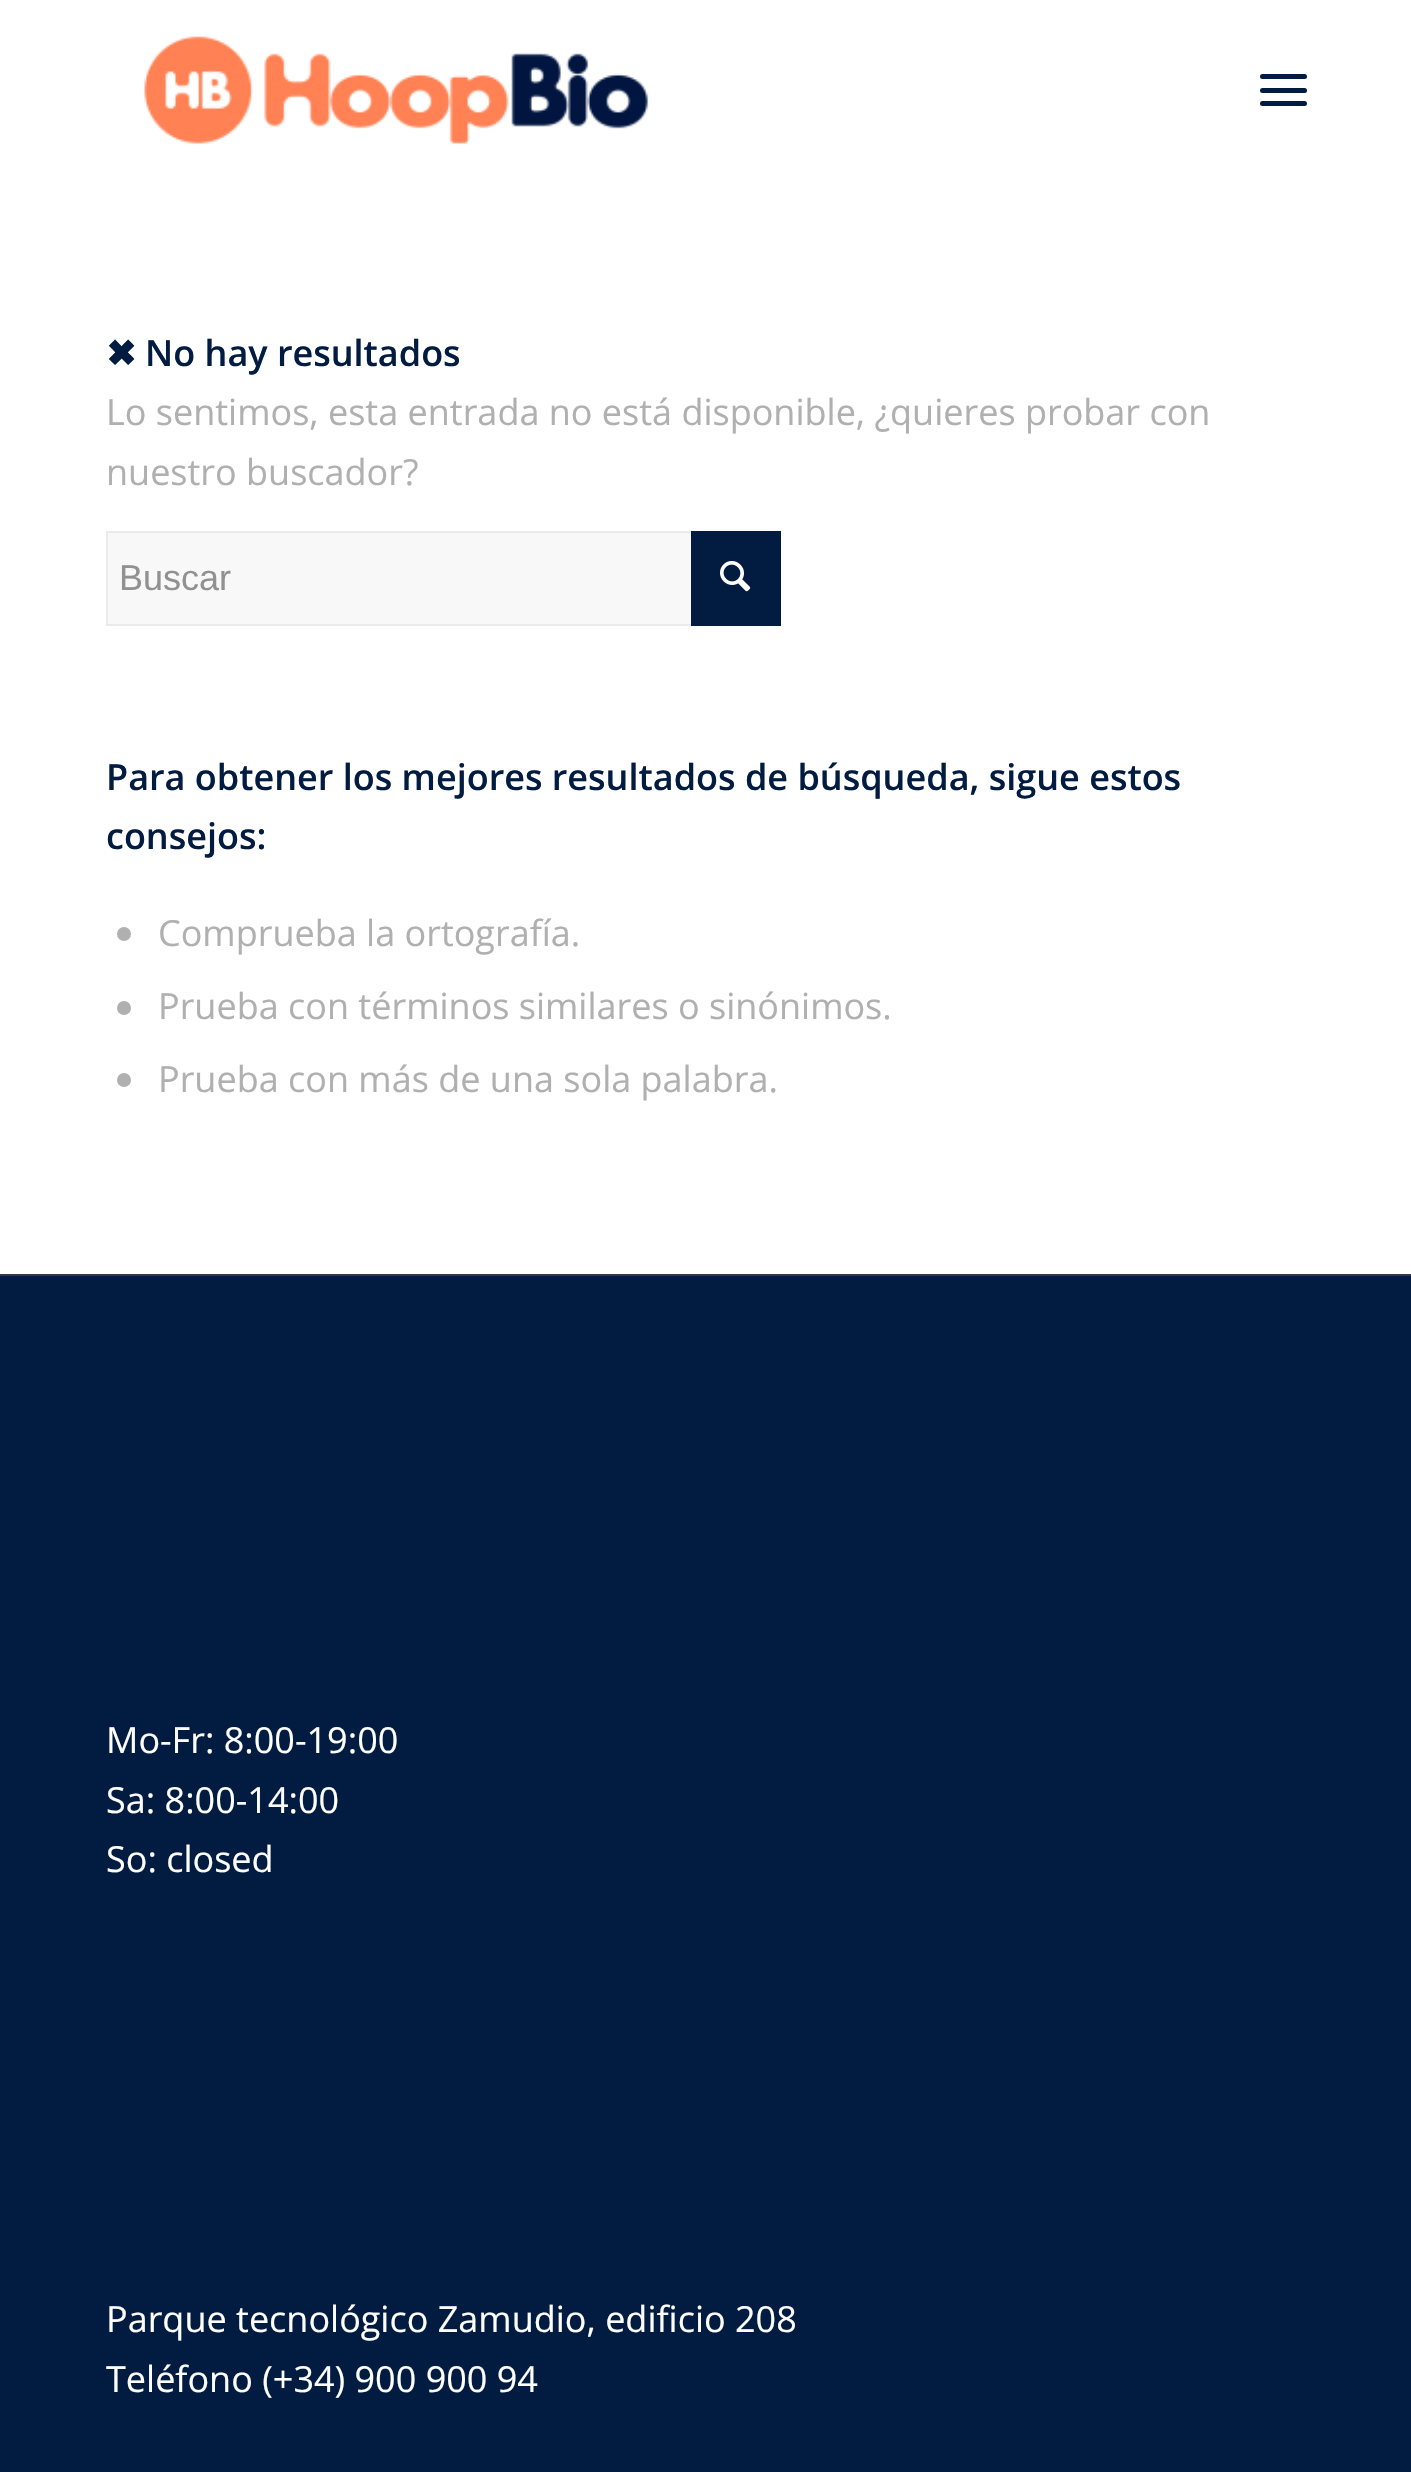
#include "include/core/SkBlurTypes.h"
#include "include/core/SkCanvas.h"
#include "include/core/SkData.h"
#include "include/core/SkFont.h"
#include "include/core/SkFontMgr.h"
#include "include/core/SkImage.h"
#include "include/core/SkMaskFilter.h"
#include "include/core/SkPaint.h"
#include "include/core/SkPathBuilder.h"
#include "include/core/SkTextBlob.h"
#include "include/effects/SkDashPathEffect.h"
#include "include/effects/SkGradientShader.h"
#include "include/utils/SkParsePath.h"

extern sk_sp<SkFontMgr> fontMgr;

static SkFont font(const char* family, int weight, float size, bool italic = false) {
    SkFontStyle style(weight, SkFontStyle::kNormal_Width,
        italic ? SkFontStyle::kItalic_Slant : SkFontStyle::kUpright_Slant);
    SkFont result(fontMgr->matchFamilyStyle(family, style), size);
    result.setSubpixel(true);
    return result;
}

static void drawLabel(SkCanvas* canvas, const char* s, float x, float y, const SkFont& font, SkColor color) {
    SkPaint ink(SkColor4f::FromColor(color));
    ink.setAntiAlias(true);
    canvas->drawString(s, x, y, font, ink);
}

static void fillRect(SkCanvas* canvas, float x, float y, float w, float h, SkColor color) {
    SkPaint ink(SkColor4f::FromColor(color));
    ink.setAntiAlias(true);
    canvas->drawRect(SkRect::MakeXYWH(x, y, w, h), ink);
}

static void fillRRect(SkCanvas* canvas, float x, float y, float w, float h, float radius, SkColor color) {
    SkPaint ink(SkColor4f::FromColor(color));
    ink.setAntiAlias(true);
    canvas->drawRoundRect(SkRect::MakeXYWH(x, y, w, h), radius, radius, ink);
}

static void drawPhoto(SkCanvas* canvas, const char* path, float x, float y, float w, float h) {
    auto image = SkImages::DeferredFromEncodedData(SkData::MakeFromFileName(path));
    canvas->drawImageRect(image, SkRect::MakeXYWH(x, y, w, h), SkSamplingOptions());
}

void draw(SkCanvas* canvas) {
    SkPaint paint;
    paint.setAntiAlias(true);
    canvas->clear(0xFFFFFFFF);
    drawPhoto(canvas, "assets/img1.png", 144, 36, 505, 108);
    fillRRect(canvas, 1260, 88, 47, 5, 2.5f, 0xFF021C41);
    fillRRect(canvas, 1260, 74, 47, 5, 2.5f, 0xFF021C41);
    fillRRect(canvas, 1260, 101, 47, 5, 2.5f, 0xFF021C41);
    SkFont font1 = font("DejaVu Sans", 700, 36);
    drawLabel(canvas, "✖", 106, 366, font1, 0xFF021C41);
    SkFont font2 = font("Open Sans", 600, 36);
    drawLabel(canvas, "No hay resultados", 145, 366, font2, 0xFF021C41);
    SkFont font3 = font("Open Sans", 400, 36);
    drawLabel(canvas, "Lo sentimos, esta entrada no está disponible, ¿quieres probar con", 106, 425, font3, 0xFFB0B0B0);
    drawLabel(canvas, "nuestro buscador?", 106, 485, font3, 0xFFB0B0B0);
    fillRect(canvas, 108, 533, 583, 91, 0xFFF8F8F8);
    paint.setStroke(true);
    paint.setStrokeWidth(2);
    paint.setColor(0xFFEBEBEB);
    canvas->drawRect(SkRect::MakeXYWH(107, 532, 673, 93), paint);
    SkFont font4 = font("Liberation Sans", 400, 36);
    drawLabel(canvas, "Buscar", 119, 590, font4, 0xFF919191);
    fillRect(canvas, 691, 531, 90, 95, 0xFF021C41);
    drawPhoto(canvas, "assets/img2.png", 720, 561, 31, 31);
    drawLabel(canvas, "Para obtener los mejores resultados de búsqueda, sigue estos", 106, 790, font2, 0xFF021C41);
    drawLabel(canvas, "consejos:", 106, 849, font2, 0xFF021C41);
    paint.setStroke(false);
    paint.setColor(0xFFB0B0B0);
    canvas->drawCircle(124, 934, 7, paint);
    drawLabel(canvas, "Comprueba la ortografía.", 158, 946, font3, 0xFFB0B0B0);
    canvas->drawCircle(124, 1008, 7, paint);
    drawLabel(canvas, "Prueba con términos similares o sinónimos.", 158, 1019, font3, 0xFFB0B0B0);
    canvas->drawCircle(124, 1080, 7, paint);
    drawLabel(canvas, "Prueba con más de una sola palabra.", 158, 1092, font3, 0xFFB0B0B0);
    fillRect(canvas, 0, 1276, 1411, 1196, 0xFF021C41);
    fillRect(canvas, 0, 1274, 1411, 2, 0xFF35383C);
    drawLabel(canvas, "Mo-Fr: 8:00-19:00", 106, 1753, font3, 0xFFFFFFFF);
    drawLabel(canvas, "Sa: 8:00-14:00", 106, 1813, font3, 0xFFFFFFFF);
    drawLabel(canvas, "So: closed", 106, 1872, font3, 0xFFFFFFFF);
    drawLabel(canvas, "Parque tecnológico Zamudio, edificio 208", 106, 2332, font3, 0xFFFFFFFF);
    drawLabel(canvas, "Teléfono (+34) 900 900 94", 106, 2392, font3, 0xFFFFFFFF);
}
